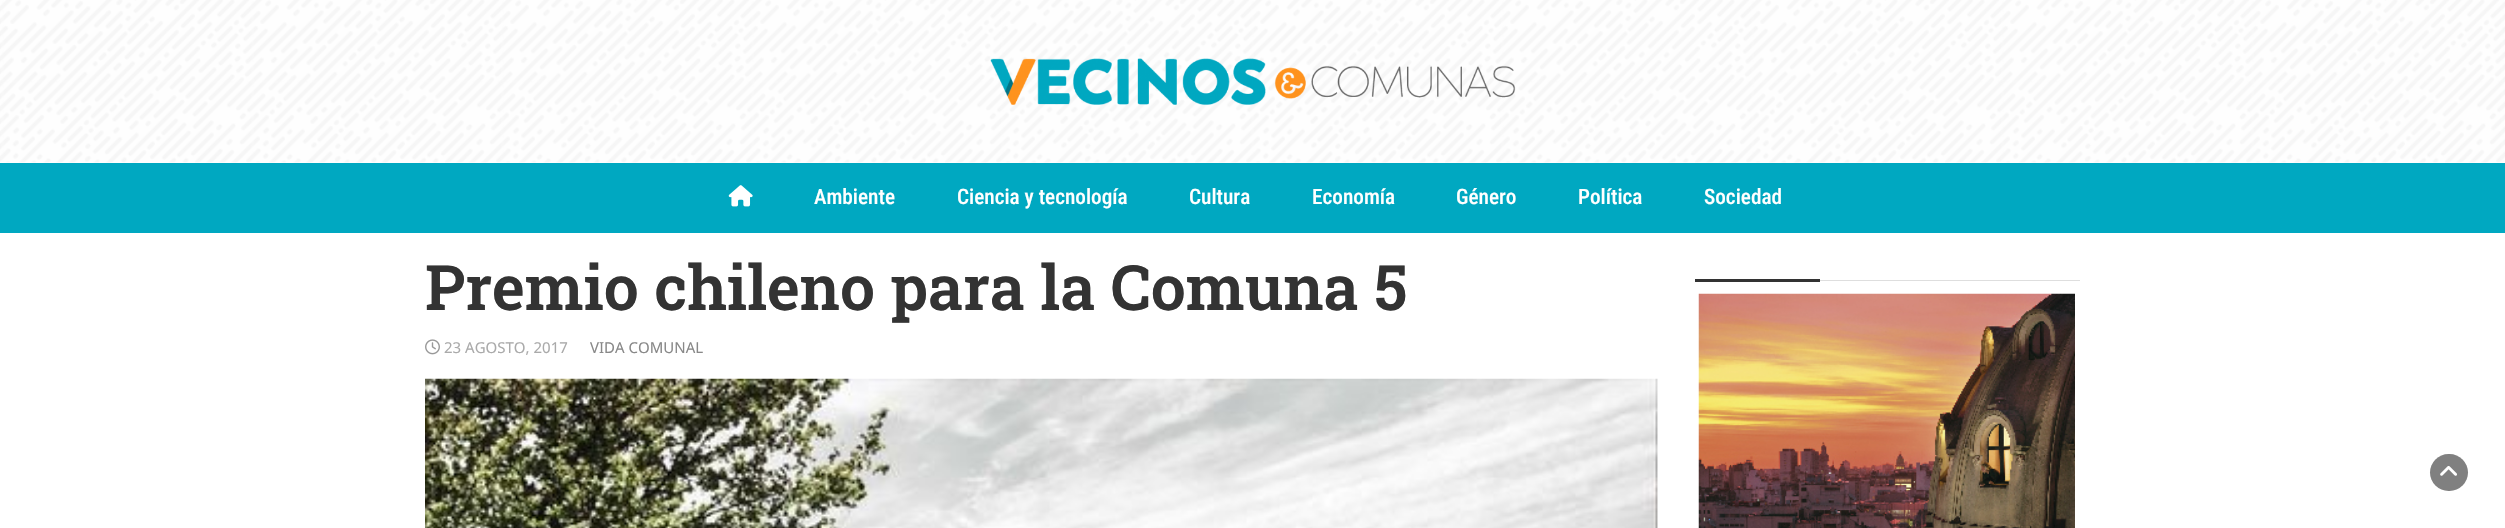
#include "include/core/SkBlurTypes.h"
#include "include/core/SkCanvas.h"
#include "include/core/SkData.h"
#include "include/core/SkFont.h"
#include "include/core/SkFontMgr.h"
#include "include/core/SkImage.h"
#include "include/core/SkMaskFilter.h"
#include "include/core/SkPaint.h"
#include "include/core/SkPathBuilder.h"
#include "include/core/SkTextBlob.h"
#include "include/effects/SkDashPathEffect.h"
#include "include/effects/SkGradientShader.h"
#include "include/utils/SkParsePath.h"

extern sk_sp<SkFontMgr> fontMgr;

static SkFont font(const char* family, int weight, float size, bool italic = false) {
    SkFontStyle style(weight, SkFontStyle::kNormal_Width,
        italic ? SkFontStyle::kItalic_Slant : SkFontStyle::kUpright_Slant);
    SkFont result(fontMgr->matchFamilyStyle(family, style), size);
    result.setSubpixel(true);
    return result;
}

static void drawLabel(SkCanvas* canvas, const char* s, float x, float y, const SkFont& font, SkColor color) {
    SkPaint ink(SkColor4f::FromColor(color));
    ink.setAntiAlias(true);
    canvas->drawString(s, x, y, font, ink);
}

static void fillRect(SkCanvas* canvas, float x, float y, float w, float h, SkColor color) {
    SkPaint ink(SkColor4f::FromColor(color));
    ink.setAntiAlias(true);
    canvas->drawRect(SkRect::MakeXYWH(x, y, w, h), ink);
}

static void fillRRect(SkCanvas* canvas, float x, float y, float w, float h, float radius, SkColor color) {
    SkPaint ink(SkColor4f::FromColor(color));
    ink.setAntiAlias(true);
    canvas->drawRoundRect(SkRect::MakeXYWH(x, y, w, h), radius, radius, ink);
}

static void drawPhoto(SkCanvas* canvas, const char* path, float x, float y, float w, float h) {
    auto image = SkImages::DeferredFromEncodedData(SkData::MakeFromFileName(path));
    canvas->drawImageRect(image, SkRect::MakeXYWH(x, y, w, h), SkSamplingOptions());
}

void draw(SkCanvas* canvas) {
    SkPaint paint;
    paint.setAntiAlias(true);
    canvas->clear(0xFFFFFFFF);
    drawPhoto(canvas, "assets/img1.png", 0, 0, 2505, 163);
    drawPhoto(canvas, "assets/img2.png", 990, 58, 526, 47);
    fillRect(canvas, 0, 163, 2505, 70, 0xFF00A8C1);
    drawPhoto(canvas, "assets/img3.png", 728, 185, 25, 22);
    SkFont font1 = font("Roboto Condensed", 500, 21.25f);
    drawLabel(canvas, "Ambiente", 814, 204, font1, 0xFFFFFFFF);
    drawLabel(canvas, "Ciencia y tecnología", 957, 204, font1, 0xFFFFFFFF);
    drawLabel(canvas, "Cultura", 1189, 204, font1, 0xFFFFFFFF);
    drawLabel(canvas, "Economía", 1312, 204, font1, 0xFFFFFFFF);
    drawLabel(canvas, "Género", 1456, 204, font1, 0xFFFFFFFF);
    drawLabel(canvas, "Política", 1578, 204, font1, 0xFFFFFFFF);
    drawLabel(canvas, "Sociedad", 1704, 204, font1, 0xFFFFFFFF);
    SkFont font2 = font("Roboto Slab", 600, 62.5f);
    drawLabel(canvas, "Premio chileno para la Comuna 5", 425, 310, font2, 0xFF333333);
    drawPhoto(canvas, "assets/img4.png", 425, 339, 15, 16);
    SkFont font3 = font("Noto Sans", 400, 15);
    drawLabel(canvas, "23 AGOSTO, 2017", 444, 353, font3, 0xFFAAAAAA);
    drawLabel(canvas, "VIDA COMUNAL", 590, 353, font3, 0xFF888888);
    drawPhoto(canvas, "assets/img5.png", 425, 378, 1233, 150);
    fillRect(canvas, 1820, 280, 260, 1, 0xFFDEDEDE);
    fillRect(canvas, 1695, 279, 125, 3, 0xFF333333);
    drawPhoto(canvas, "assets/img6.png", 1698, 293, 377, 235);
    fillRRect(canvas, 2430, 454, 38, 37, 18.5f, 0xFF808080);
    drawPhoto(canvas, "assets/img7.png", 2440, 466, 17, 10);
}
